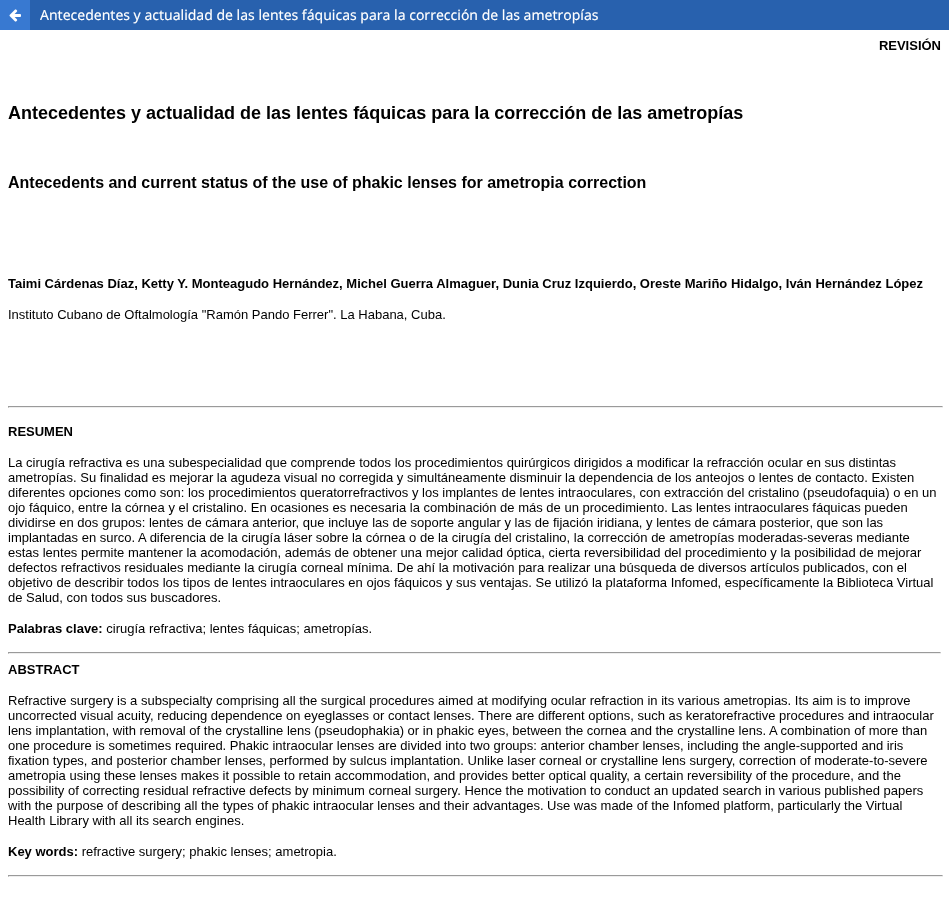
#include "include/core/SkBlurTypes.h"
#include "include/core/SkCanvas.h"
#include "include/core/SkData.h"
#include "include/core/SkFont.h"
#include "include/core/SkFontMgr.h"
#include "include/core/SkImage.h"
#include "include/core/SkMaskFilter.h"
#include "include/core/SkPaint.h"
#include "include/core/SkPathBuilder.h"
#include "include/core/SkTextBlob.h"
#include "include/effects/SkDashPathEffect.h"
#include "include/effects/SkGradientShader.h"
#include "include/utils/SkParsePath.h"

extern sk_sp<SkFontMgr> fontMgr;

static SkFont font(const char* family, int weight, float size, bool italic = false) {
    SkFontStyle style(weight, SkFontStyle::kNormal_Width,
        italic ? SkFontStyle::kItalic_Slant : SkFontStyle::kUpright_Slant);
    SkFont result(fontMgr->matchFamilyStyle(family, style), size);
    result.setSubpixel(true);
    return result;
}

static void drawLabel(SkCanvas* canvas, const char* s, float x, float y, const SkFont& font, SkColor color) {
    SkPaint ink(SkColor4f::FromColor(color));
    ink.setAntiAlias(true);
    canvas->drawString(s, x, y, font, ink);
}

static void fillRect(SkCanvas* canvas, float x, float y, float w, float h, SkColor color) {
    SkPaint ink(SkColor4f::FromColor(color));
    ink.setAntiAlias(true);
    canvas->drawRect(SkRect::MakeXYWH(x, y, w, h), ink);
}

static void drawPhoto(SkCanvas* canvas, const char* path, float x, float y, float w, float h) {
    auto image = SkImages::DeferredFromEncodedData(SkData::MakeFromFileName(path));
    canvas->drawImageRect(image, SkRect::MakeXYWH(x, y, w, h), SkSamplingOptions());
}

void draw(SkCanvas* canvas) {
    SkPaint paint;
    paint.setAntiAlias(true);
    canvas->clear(0xFFFFFFFF);
    fillRect(canvas, 30, 0, 919, 30, 0xFF2861AE);
    fillRect(canvas, 0, 0, 30, 30, 0xFF3879D1);
    drawPhoto(canvas, "assets/img1.png", 9, 9, 12, 13);
    SkFont font1 = font("Noto Sans", 400, 14);
    drawLabel(canvas, "Antecedentes y actualidad de las lentes fáquicas para la corrección de las ametropías", 40, 20, font1, 0xFFFFFFFF);
    drawPhoto(canvas, "assets/img2.png", 8, 38, 935, 839);
}
